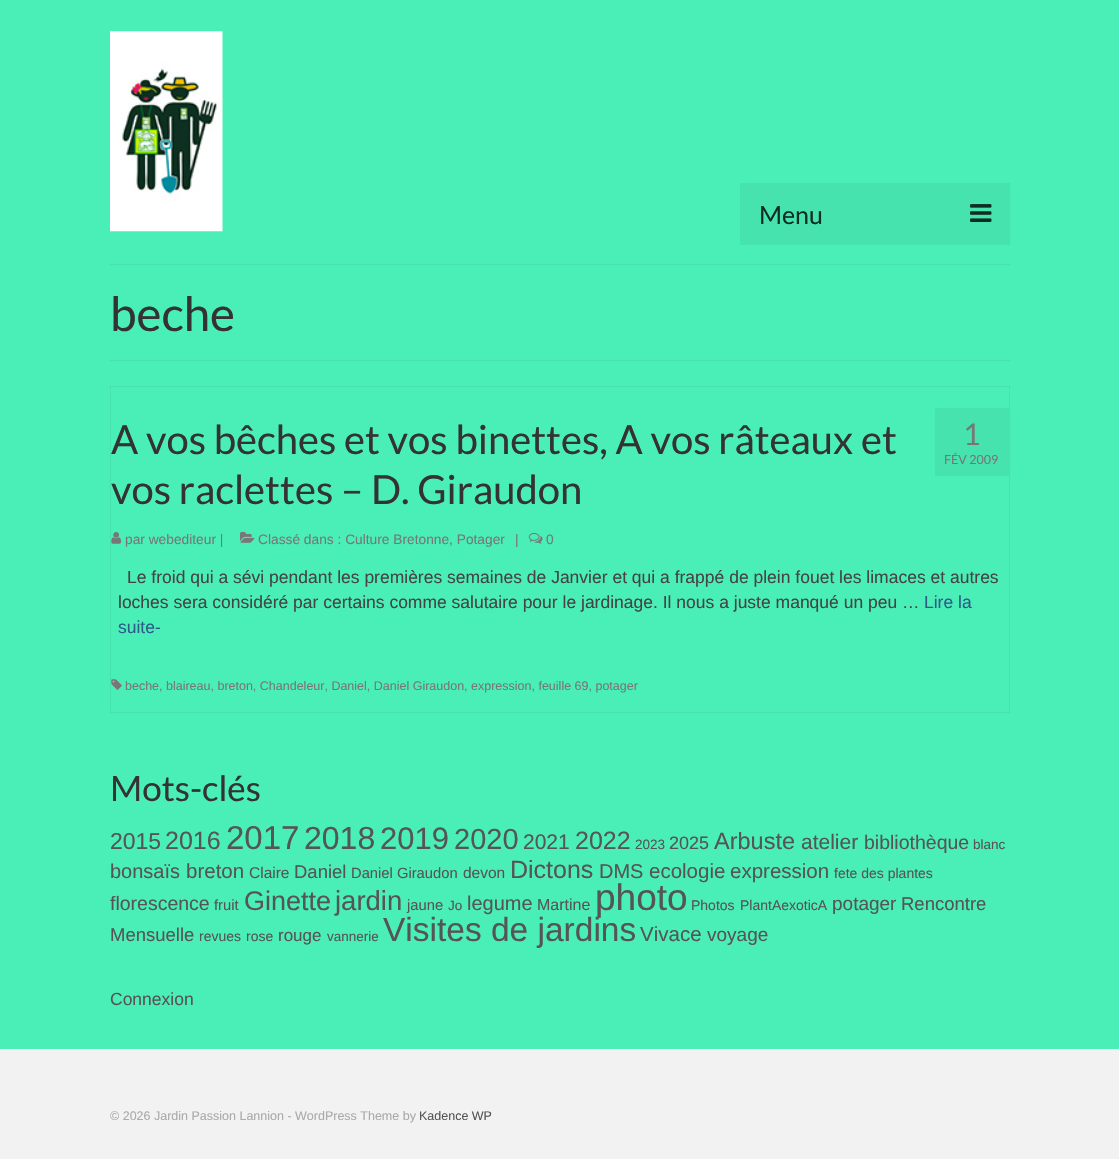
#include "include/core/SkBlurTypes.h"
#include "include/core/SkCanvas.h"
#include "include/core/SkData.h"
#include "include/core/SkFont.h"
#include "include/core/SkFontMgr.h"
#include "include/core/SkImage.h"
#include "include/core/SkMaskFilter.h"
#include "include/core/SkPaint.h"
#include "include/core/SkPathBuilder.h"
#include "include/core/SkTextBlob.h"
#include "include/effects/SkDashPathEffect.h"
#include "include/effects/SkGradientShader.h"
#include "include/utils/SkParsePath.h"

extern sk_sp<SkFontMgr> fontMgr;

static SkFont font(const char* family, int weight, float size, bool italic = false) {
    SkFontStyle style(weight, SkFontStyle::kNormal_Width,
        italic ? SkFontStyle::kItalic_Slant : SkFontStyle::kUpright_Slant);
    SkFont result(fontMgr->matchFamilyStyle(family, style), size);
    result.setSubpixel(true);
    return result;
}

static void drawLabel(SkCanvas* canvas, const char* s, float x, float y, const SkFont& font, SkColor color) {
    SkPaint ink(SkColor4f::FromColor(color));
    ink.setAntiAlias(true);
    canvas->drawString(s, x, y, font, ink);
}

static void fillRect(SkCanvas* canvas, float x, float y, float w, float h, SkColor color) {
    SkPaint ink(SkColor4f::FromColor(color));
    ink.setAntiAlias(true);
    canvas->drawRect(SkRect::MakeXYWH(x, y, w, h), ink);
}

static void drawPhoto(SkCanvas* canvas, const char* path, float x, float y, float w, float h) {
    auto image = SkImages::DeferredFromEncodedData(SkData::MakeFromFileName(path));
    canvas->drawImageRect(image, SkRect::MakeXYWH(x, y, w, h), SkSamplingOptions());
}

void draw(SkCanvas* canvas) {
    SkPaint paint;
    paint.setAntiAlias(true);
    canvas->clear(0xFFFFFFFF);
    fillRect(canvas, 0, 0, 1119, 1049, 0xFF4AEFB8);
    drawPhoto(canvas, "assets/img1.png", 110, 31, 113, 201);
    fillRect(canvas, 740, 183, 270, 62, 0xFF46E3AF);
    SkFont font1 = font("Lato", 400, 25);
    drawLabel(canvas, "Menu", 759, 224, font1, 0xFF0E2D23);
    drawPhoto(canvas, "assets/img2.png", 970, 204, 22, 18);
    fillRect(canvas, 110, 264, 900, 1, 0xFF46E3AF);
    fillRect(canvas, 110, 360, 900, 1, 0xFF46E3AF);
    SkFont font2 = font("Lato", 400, 47.5f);
    drawLabel(canvas, "beche", 110, 331, font2, 0xFF333333);
    paint.setStroke(true);
    paint.setStrokeWidth(1);
    paint.setColor(0xFF46E3AF);
    canvas->drawRect(SkRect::MakeXYWH(110.5f, 386.5f, 899, 326), paint);
    SkFont font3 = font("Lato", 400, 40);
    drawLabel(canvas, "A vos bêches et vos binettes, A vos râteaux et", 111, 454, font3, 0xFF333333);
    drawLabel(canvas, "vos raclettes – D. Giraudon", 111, 504, font3, 0xFF333333);
    drawPhoto(canvas, "assets/img3.png", 111, 532, 11, 12);
    SkFont font4 = font("Liberation Sans", 400, 13.75f);
    drawLabel(canvas, "par webediteur |", 125, 544, font4, 0xFF777777);
    drawPhoto(canvas, "assets/img4.png", 240, 531, 15, 12);
    drawLabel(canvas, "Classé dans : Culture Bretonne, Potager", 258, 544, font4, 0xFF777777);
    drawLabel(canvas, "|", 515, 544, font4, 0xFF777777);
    drawPhoto(canvas, "assets/img5.png", 528, 532, 15, 12);
    drawLabel(canvas, "0", 546, 544, font4, 0xFF777777);
    fillRect(canvas, 935, 408, 74, 68, 0xFF46E3AF);
    SkFont font5 = font("Lato", 400, 30);
    drawLabel(canvas, "1", 963, 445, font5, 0xFF777777);
    SkFont font6 = font("Lato", 400, 12.5f);
    drawLabel(canvas, "FÉV 2009", 944, 464, font6, 0xFF777777);
    SkFont font7 = font("Liberation Sans", 400, 17.5f);
    drawLabel(canvas, "Le froid qui a sévi pendant les premières semaines de Janvier et qui a frappé de plein fouet les limaces et autres", 127, 583, font7, 0xFF444444);
    drawLabel(canvas, "loches sera considéré par certains comme salutaire pour le jardinage. Il nous a juste manqué un peu …", 118, 608, font7, 0xFF444444);
    drawLabel(canvas, "Lire la", 924, 608, font7, 0xFF2D5C88);
    drawLabel(canvas, "suite-", 118, 633, font7, 0xFF2D5C88);
    drawPhoto(canvas, "assets/img6.png", 111, 679, 11, 11);
    SkFont font8 = font("Liberation Sans", 400, 12.5f);
    drawLabel(canvas, "beche, blaireau, breton, Chandeleur, Daniel, Daniel Giraudon, expression, feuille 69, potager", 125, 690, font8, 0xFF777777);
    SkFont font9 = font("Lato", 400, 35);
    drawLabel(canvas, "Mots-clés", 110, 801, font9, 0xFF333333);
    SkFont font10 = font("Liberation Sans", 400, 23);
    drawLabel(canvas, "2015", 110, 849, font10, 0xFF555555);
    SkFont font11 = font("Liberation Sans", 400, 25);
    drawLabel(canvas, "2016", 165, 849, font11, 0xFF555555);
    SkFont font12 = font("Liberation Sans", 400, 33);
    drawLabel(canvas, "2017", 226, 849, font12, 0xFF555555);
    SkFont font13 = font("Liberation Sans", 400, 32);
    drawLabel(canvas, "2018", 304, 849, font13, 0xFF555555);
    SkFont font14 = font("Liberation Sans", 400, 31);
    drawLabel(canvas, "2019", 380, 849, font14, 0xFF555555);
    SkFont font15 = font("Liberation Sans", 400, 29);
    drawLabel(canvas, "2020", 454, 849, font15, 0xFF555555);
    SkFont font16 = font("Liberation Sans", 400, 21);
    drawLabel(canvas, "2021", 523, 849, font16, 0xFF555555);
    drawLabel(canvas, "2022", 575, 849, font11, 0xFF555555);
    SkFont font17 = font("Liberation Sans", 400, 13.5f);
    drawLabel(canvas, "2023", 635, 849, font17, 0xFF555555);
    SkFont font18 = font("Liberation Sans", 400, 18);
    drawLabel(canvas, "2025", 669, 849, font18, 0xFF555555);
    SkFont font19 = font("Liberation Sans", 400, 23.5f);
    drawLabel(canvas, "Arbuste", 714, 849, font19, 0xFF555555);
    drawLabel(canvas, "atelier", 801, 849, font16, 0xFF555555);
    SkFont font20 = font("Liberation Sans", 400, 19.5f);
    drawLabel(canvas, "bibliothèque", 864, 849, font20, 0xFF555555);
    drawLabel(canvas, "blanc", 973, 849, font17, 0xFF555555);
    SkFont font21 = font("Liberation Sans", 400, 20);
    drawLabel(canvas, "bonsaïs", 110, 878, font21, 0xFF555555);
    SkFont font22 = font("Liberation Sans", 400, 20.5f);
    drawLabel(canvas, "breton", 186, 878, font22, 0xFF555555);
    SkFont font23 = font("Liberation Sans", 400, 15.5f);
    drawLabel(canvas, "Claire", 249, 878, font23, 0xFF555555);
    SkFont font24 = font("Liberation Sans", 400, 18.5f);
    drawLabel(canvas, "Daniel", 294, 878, font24, 0xFF555555);
    SkFont font25 = font("Liberation Sans", 400, 14.75f);
    drawLabel(canvas, "Daniel Giraudon", 351, 878, font25, 0xFF555555);
    drawLabel(canvas, "devon", 463, 878, font23, 0xFF555555);
    drawLabel(canvas, "Dictons", 510, 878, font11, 0xFF555555);
    drawLabel(canvas, "DMS", 599, 878, font21, 0xFF555555);
    drawLabel(canvas, "ecologie", 649, 878, font22, 0xFF555555);
    drawLabel(canvas, "expression", 730, 878, font22, 0xFF555555);
    SkFont font26 = font("Liberation Sans", 400, 14);
    drawLabel(canvas, "fete des plantes", 834, 878, font26, 0xFF555555);
    drawLabel(canvas, "florescence", 110, 910, font20, 0xFF555555);
    drawLabel(canvas, "fruit", 214, 910, font25, 0xFF555555);
    SkFont font27 = font("Liberation Sans", 400, 27);
    drawLabel(canvas, "Ginette", 244, 910, font27, 0xFF555555);
    SkFont font28 = font("Liberation Sans", 400, 27.5f);
    drawLabel(canvas, "jardin", 335, 910, font28, 0xFF555555);
    drawLabel(canvas, "jaune", 407, 910, font25, 0xFF555555);
    drawLabel(canvas, "Jo", 448, 910, font17, 0xFF555555);
    drawLabel(canvas, "legume", 467, 910, font21, 0xFF555555);
    SkFont font29 = font("Liberation Sans", 400, 16);
    drawLabel(canvas, "Martine", 537, 910, font29, 0xFF555555);
    SkFont font30 = font("Liberation Sans", 400, 37);
    drawLabel(canvas, "photo", 595, 910, font30, 0xFF555555);
    drawLabel(canvas, "Photos", 691, 910, font26, 0xFF555555);
    drawLabel(canvas, "PlantAexoticA", 740, 910, font26, 0xFF555555);
    SkFont font31 = font("Liberation Sans", 400, 19);
    drawLabel(canvas, "potager", 832, 910, font31, 0xFF555555);
    drawLabel(canvas, "Rencontre", 901, 910, font24, 0xFF555555);
    drawLabel(canvas, "Mensuelle", 110, 941, font24, 0xFF555555);
    drawLabel(canvas, "revues", 199, 941, font26, 0xFF555555);
    drawLabel(canvas, "rose", 246, 941, font26, 0xFF555555);
    SkFont font32 = font("Liberation Sans", 400, 17);
    drawLabel(canvas, "rouge", 278, 941, font32, 0xFF555555);
    drawLabel(canvas, "vannerie", 327, 941, font17, 0xFF555555);
    SkFont font33 = font("Liberation Sans", 400, 33.5f);
    drawLabel(canvas, "Visites de jardins", 383, 941, font33, 0xFF555555);
    drawLabel(canvas, "Vivace", 640, 941, font22, 0xFF555555);
    drawLabel(canvas, "voyage", 707, 941, font31, 0xFF555555);
    drawLabel(canvas, "Connexion", 110, 1005, font7, 0xFF555555);
    fillRect(canvas, 0, 1049, 1119, 110, 0xFFF2F2F2);
    drawLabel(canvas, "© 2026 Jardin Passion Lannion - WordPress Theme by", 110, 1120, font8, 0xFFAAAAAA);
    drawLabel(canvas, "Kadence WP", 419, 1120, font8, 0xFF555555);
}
